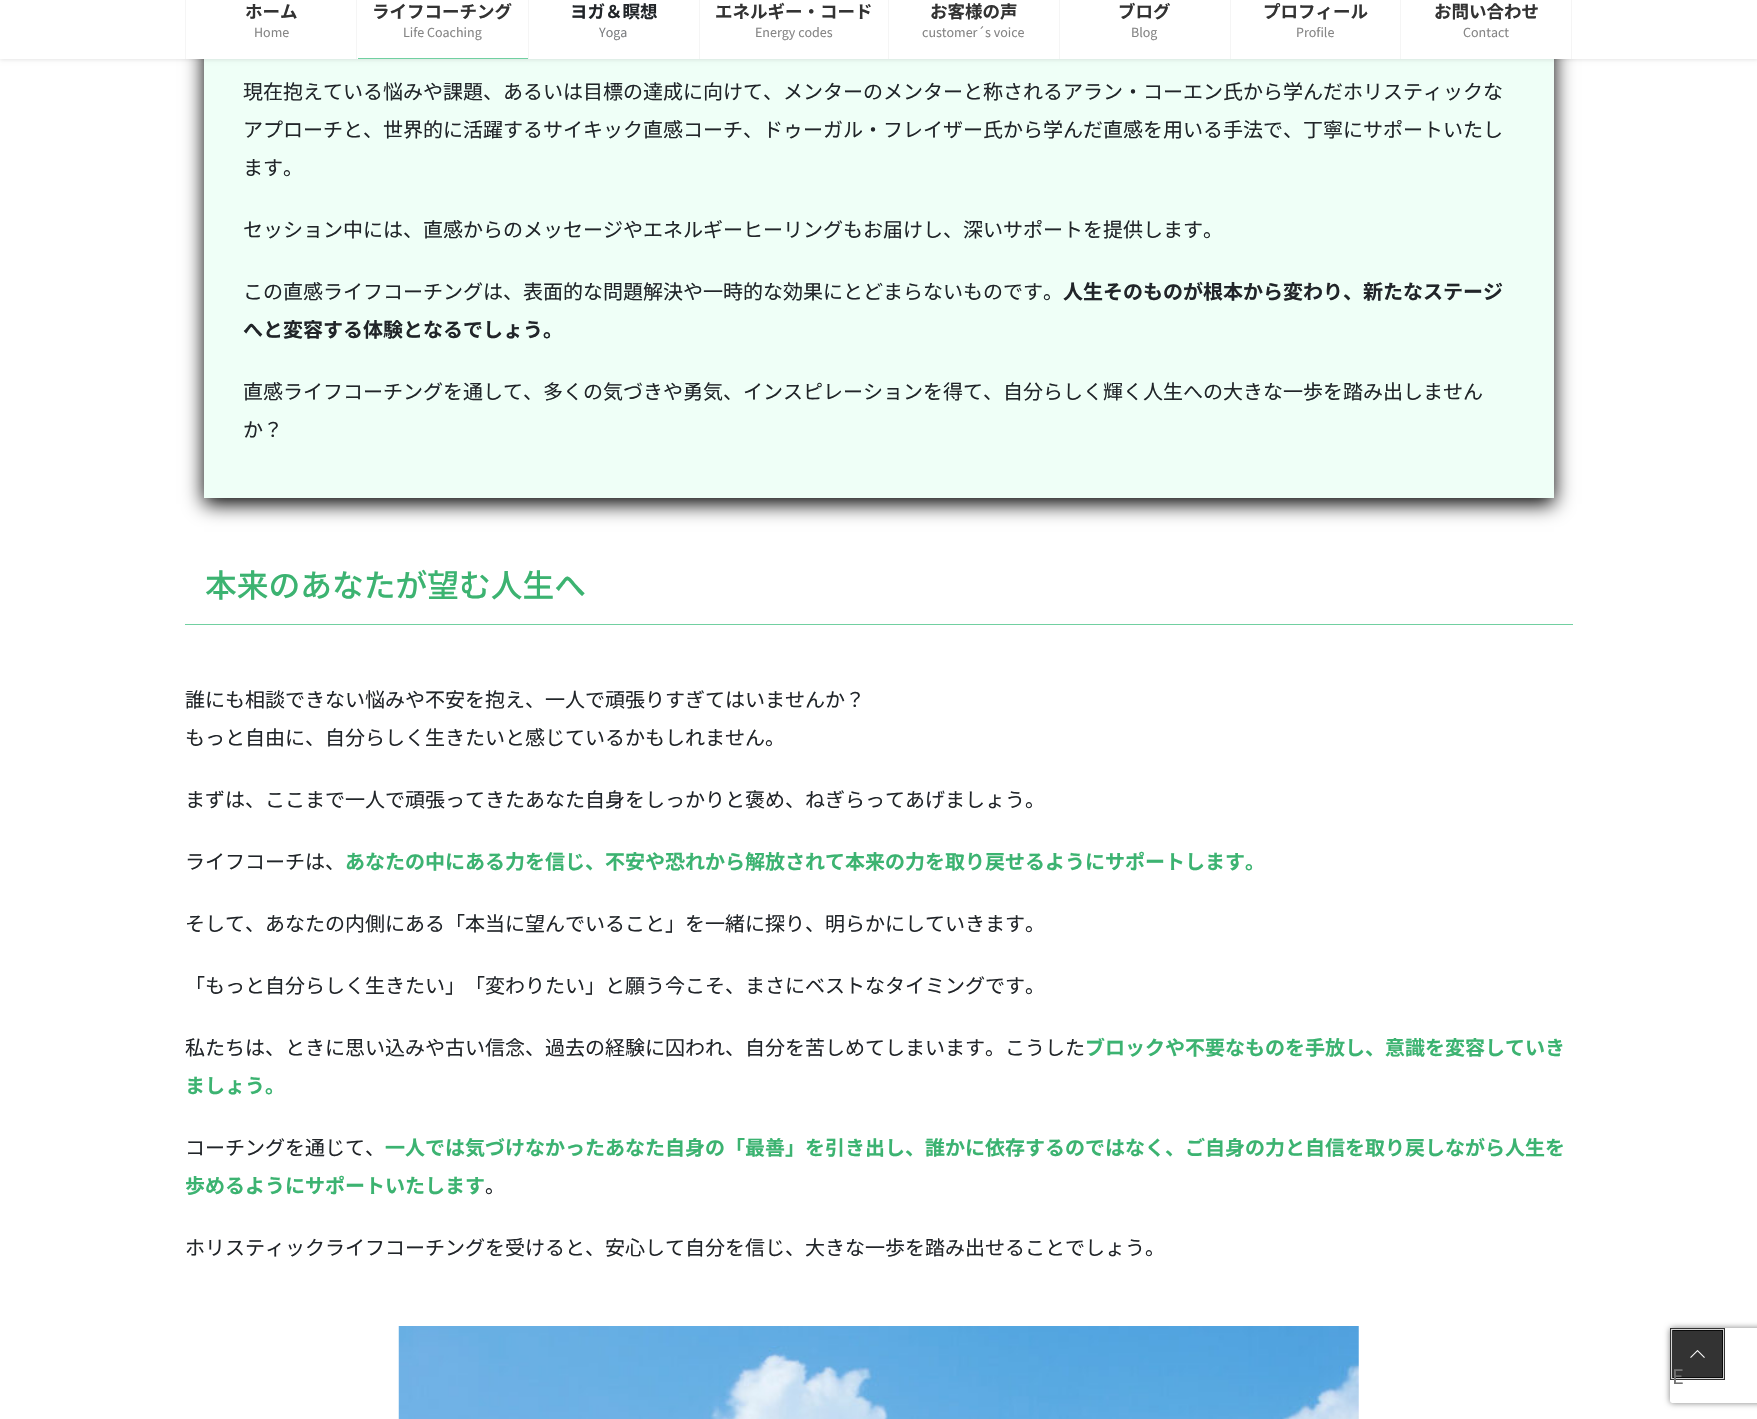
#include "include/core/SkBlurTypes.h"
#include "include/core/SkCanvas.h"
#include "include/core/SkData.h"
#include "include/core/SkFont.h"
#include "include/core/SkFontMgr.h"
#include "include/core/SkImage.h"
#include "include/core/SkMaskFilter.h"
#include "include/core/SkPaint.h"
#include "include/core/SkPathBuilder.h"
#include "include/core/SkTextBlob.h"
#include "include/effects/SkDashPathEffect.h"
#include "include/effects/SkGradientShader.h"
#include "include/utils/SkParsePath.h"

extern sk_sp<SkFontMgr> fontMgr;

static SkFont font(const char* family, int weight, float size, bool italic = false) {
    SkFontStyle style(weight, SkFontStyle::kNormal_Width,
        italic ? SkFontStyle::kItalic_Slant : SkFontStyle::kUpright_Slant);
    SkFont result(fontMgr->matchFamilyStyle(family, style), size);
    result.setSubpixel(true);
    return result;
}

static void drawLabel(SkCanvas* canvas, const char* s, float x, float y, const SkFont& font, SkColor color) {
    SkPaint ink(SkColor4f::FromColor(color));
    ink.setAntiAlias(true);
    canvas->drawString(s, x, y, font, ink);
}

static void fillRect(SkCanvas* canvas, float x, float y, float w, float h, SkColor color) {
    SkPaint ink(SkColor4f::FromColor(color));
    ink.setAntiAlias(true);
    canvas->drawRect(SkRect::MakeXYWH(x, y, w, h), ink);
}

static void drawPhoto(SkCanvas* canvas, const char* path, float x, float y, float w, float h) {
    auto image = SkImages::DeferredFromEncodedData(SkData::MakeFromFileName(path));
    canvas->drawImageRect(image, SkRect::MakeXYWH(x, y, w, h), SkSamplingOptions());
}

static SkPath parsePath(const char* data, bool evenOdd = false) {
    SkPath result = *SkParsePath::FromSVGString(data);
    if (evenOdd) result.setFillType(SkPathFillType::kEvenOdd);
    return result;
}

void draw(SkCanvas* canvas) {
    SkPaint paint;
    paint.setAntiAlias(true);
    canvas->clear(0xFFFFFFFF);
    paint.setColor(0xFF000000);
    paint.setMaskFilter(SkMaskFilter::MakeBlur(kNormal_SkBlurStyle, 9.5f));
    canvas->drawRect(SkRect::MakeXYWH(204, -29, 1350, 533), paint);
    paint.setMaskFilter(nullptr);
    fillRect(canvas, 204, 59, 1350, 439, 0xFFEFFFF7);
    paint.setColor(0x1A000000);
    paint.setMaskFilter(SkMaskFilter::MakeBlur(kNormal_SkBlurStyle, 2));
    canvas->drawRect(SkRect::MakeXYWH(0, -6, 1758, 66), paint);
    paint.setMaskFilter(nullptr);
    fillRect(canvas, 0, 0, 1757, 59, 0xFFFFFFFF);
    fillRect(canvas, 185, 0, 1, 59, 0xFFF5F5F5);
    SkFont font1 = font("Noto Sans JP", 700, 17.5f);
    drawLabel(canvas, "ホーム", 245, 18, font1, 0xFF333333);
    SkFont font2 = font("Noto Sans JP", 400, 12.5f);
    drawLabel(canvas, "Home", 254, 37, font2, 0xFF858585);
    fillRect(canvas, 356, 0, 1, 59, 0xFFF5F5F5);
    drawLabel(canvas, "ライフコーチング", 372, 18, font1, 0xFF333333);
    drawLabel(canvas, "Life Coaching", 403, 37, font2, 0xFF858585);
    fillRect(canvas, 358, 58, 170, 1, 0xFF71D0A1);
    fillRect(canvas, 528, 0, 1, 59, 0xFFF5F5F5);
    drawLabel(canvas, "ヨガ＆瞑想", 570, 18, font1, 0xFF212529);
    drawLabel(canvas, "Yoga", 599, 37, font2, 0xFF7A7C7F);
    fillRect(canvas, 699, 0, 1, 59, 0xFFF5F5F5);
    drawLabel(canvas, "エネルギー・コード", 715, 18, font1, 0xFF333333);
    drawLabel(canvas, "Energy codes", 755, 37, font2, 0xFF858585);
    fillRect(canvas, 888, 0, 1, 59, 0xFFF5F5F5);
    drawLabel(canvas, "お客様の声", 930, 18, font1, 0xFF333333);
    drawLabel(canvas, "customer´s voice", 922, 37, font2, 0xFF858585);
    fillRect(canvas, 1059, 0, 1, 59, 0xFFF5F5F5);
    drawLabel(canvas, "ブログ", 1118, 18, font1, 0xFF333333);
    drawLabel(canvas, "Blog", 1131, 37, font2, 0xFF858585);
    fillRect(canvas, 1230, 0, 1, 59, 0xFFF5F5F5);
    drawLabel(canvas, "プロフィール", 1263, 18, font1, 0xFF333333);
    drawLabel(canvas, "Profile", 1296, 37, font2, 0xFF858585);
    fillRect(canvas, 1571, 0, 1, 59, 0xFFF5F5F5);
    fillRect(canvas, 1400, 0, 1, 59, 0xFFF5F5F5);
    drawLabel(canvas, "お問い合わせ", 1434, 18, font1, 0xFF333333);
    drawLabel(canvas, "Contact", 1463, 37, font2, 0xFF858585);
    SkFont font3 = font("Noto Sans JP", 400, 20);
    drawLabel(canvas, "現在抱えている悩みや課題、あるいは目標の達成に向けて、メンターのメンターと称されるアラン・コーエン氏から学んだホリスティックな", 243, 99, font3, 0xFF212529);
    drawLabel(canvas, "アプローチと、世界的に活躍するサイキック直感コーチ、ドゥーガル・フレイザー氏から学んだ直感を用いる手法で、丁寧にサポートいたし", 243, 137, font3, 0xFF212529);
    drawLabel(canvas, "ます。", 243, 175, font3, 0xFF212529);
    drawLabel(canvas, "セッション中には、直感からのメッセージやエネルギーヒーリングもお届けし、深いサポートを提供します。", 243, 237, font3, 0xFF212529);
    drawLabel(canvas, "この直感ライフコーチングは、表面的な問題解決や一時的な効果にとどまらないものです。", 243, 299, font3, 0xFF212529);
    SkFont font4 = font("Noto Sans JP", 700, 20);
    drawLabel(canvas, "人生そのものが根本から変わり、新たなステージ", 1063, 299, font4, 0xFF212529);
    drawLabel(canvas, "へと変容する体験となるでしょう。", 243, 337, font4, 0xFF212529);
    drawLabel(canvas, "直感ライフコーチングを通して、多くの気づきや勇気、インスピレーションを得て、自分らしく輝く人生への大きな一歩を踏み出しません", 243, 399, font3, 0xFF212529);
    drawLabel(canvas, "か？", 243, 437, font3, 0xFF212529);
    fillRect(canvas, 185, 624, 1388, 1, 0xFF71D0A1);
    SkFont font5 = font("Noto Sans JP", 500, 31.75f);
    drawLabel(canvas, "本来のあなたが望む人生へ", 205, 597, font5, 0xFF3CB371);
    drawLabel(canvas, "誰にも相談できない悩みや不安を抱え、一人で頑張りすぎてはいませんか？", 185, 707, font3, 0xFF212529);
    drawLabel(canvas, "もっと自由に、自分らしく生きたいと感じているかもしれません。", 185, 745, font3, 0xFF212529);
    drawLabel(canvas, "まずは、ここまで一人で頑張ってきたあなた自身をしっかりと褒め、ねぎらってあげましょう。", 185, 807, font3, 0xFF212529);
    drawLabel(canvas, "ライフコーチは、", 185, 869, font3, 0xFF212529);
    drawLabel(canvas, "あなたの中にある力を信じ、不安や恐れから解放されて本来の力を取り戻せるようにサポートします。", 345, 869, font4, 0xFF3CB371);
    drawLabel(canvas, "そして、あなたの内側にある「本当に望んでいること」を一緒に探り、明らかにしていきます。", 185, 931, font3, 0xFF212529);
    drawLabel(canvas, "「もっと自分らしく生きたい」「変わりたい」と願う今こそ、まさにベストなタイミングです。", 185, 993, font3, 0xFF212529);
    drawLabel(canvas, "私たちは、ときに思い込みや古い信念、過去の経験に囚われ、自分を苦しめてしまいます。こうした", 185, 1055, font3, 0xFF212529);
    drawLabel(canvas, "ブロックや不要なものを手放し、意識を変容していき", 1085, 1055, font4, 0xFF3CB371);
    drawLabel(canvas, "ましょう。", 185, 1093, font4, 0xFF3CB371);
    drawLabel(canvas, "コーチングを通じて、", 185, 1155, font3, 0xFF212529);
    drawLabel(canvas, "一人では気づけなかったあなた自身の「最善」を引き出し、誰かに依存するのではなく、ご自身の力と自信を取り戻しながら人生を", 385, 1155, font4, 0xFF3CB371);
    drawLabel(canvas, "歩めるようにサポートいたします", 185, 1193, font4, 0xFF3CB371);
    drawLabel(canvas, "。", 485, 1193, font3, 0xFF212529);
    drawLabel(canvas, "ホリスティックライフコーチングを受けると、安心して自分を信じ、大きな一歩を踏み出せることでしょう。", 185, 1255, font3, 0xFF212529);
    drawPhoto(canvas, "assets/img1.png", 398, 1326, 961, 93);
    canvas->save();
    canvas->clipPath(parsePath("M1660 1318H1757V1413H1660ZM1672.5 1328H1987.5C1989 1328 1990 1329 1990 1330.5V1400.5C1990 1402 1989 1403 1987.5 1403H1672.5C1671 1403 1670 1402 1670 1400.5V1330.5C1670 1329 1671 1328 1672.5 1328Z", true), true);
    paint.setColor(0xFF808080);
    paint.setMaskFilter(SkMaskFilter::MakeBlur(kNormal_SkBlurStyle, 3));
    canvas->drawRoundRect(SkRect::MakeXYWH(1670, 1328, 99, 75), 2.5f, 2.5f, paint);
    paint.setMaskFilter(nullptr);
    canvas->restore();
    paint.setStroke(true);
    paint.setStrokeWidth(3);
    paint.setColor(0xCC000000);
    canvas->drawRect(SkRect::MakeXYWH(1671.5f, 1329.5f, 52, 49), paint);
    paint.setStrokeWidth(1);
    paint.setColor(0xFFD6D6D6);
    canvas->drawRect(SkRect::MakeXYWH(1671.5f, 1329.5f, 52, 49), paint);
    fillRect(canvas, 1673, 1330, 50, 48, 0xCC000000);
    drawPhoto(canvas, "assets/img2.png", 1690, 1350, 15, 8);
    drawLabel(canvas, "E", 1672, 1384, font3, 0xFF717171);
}
